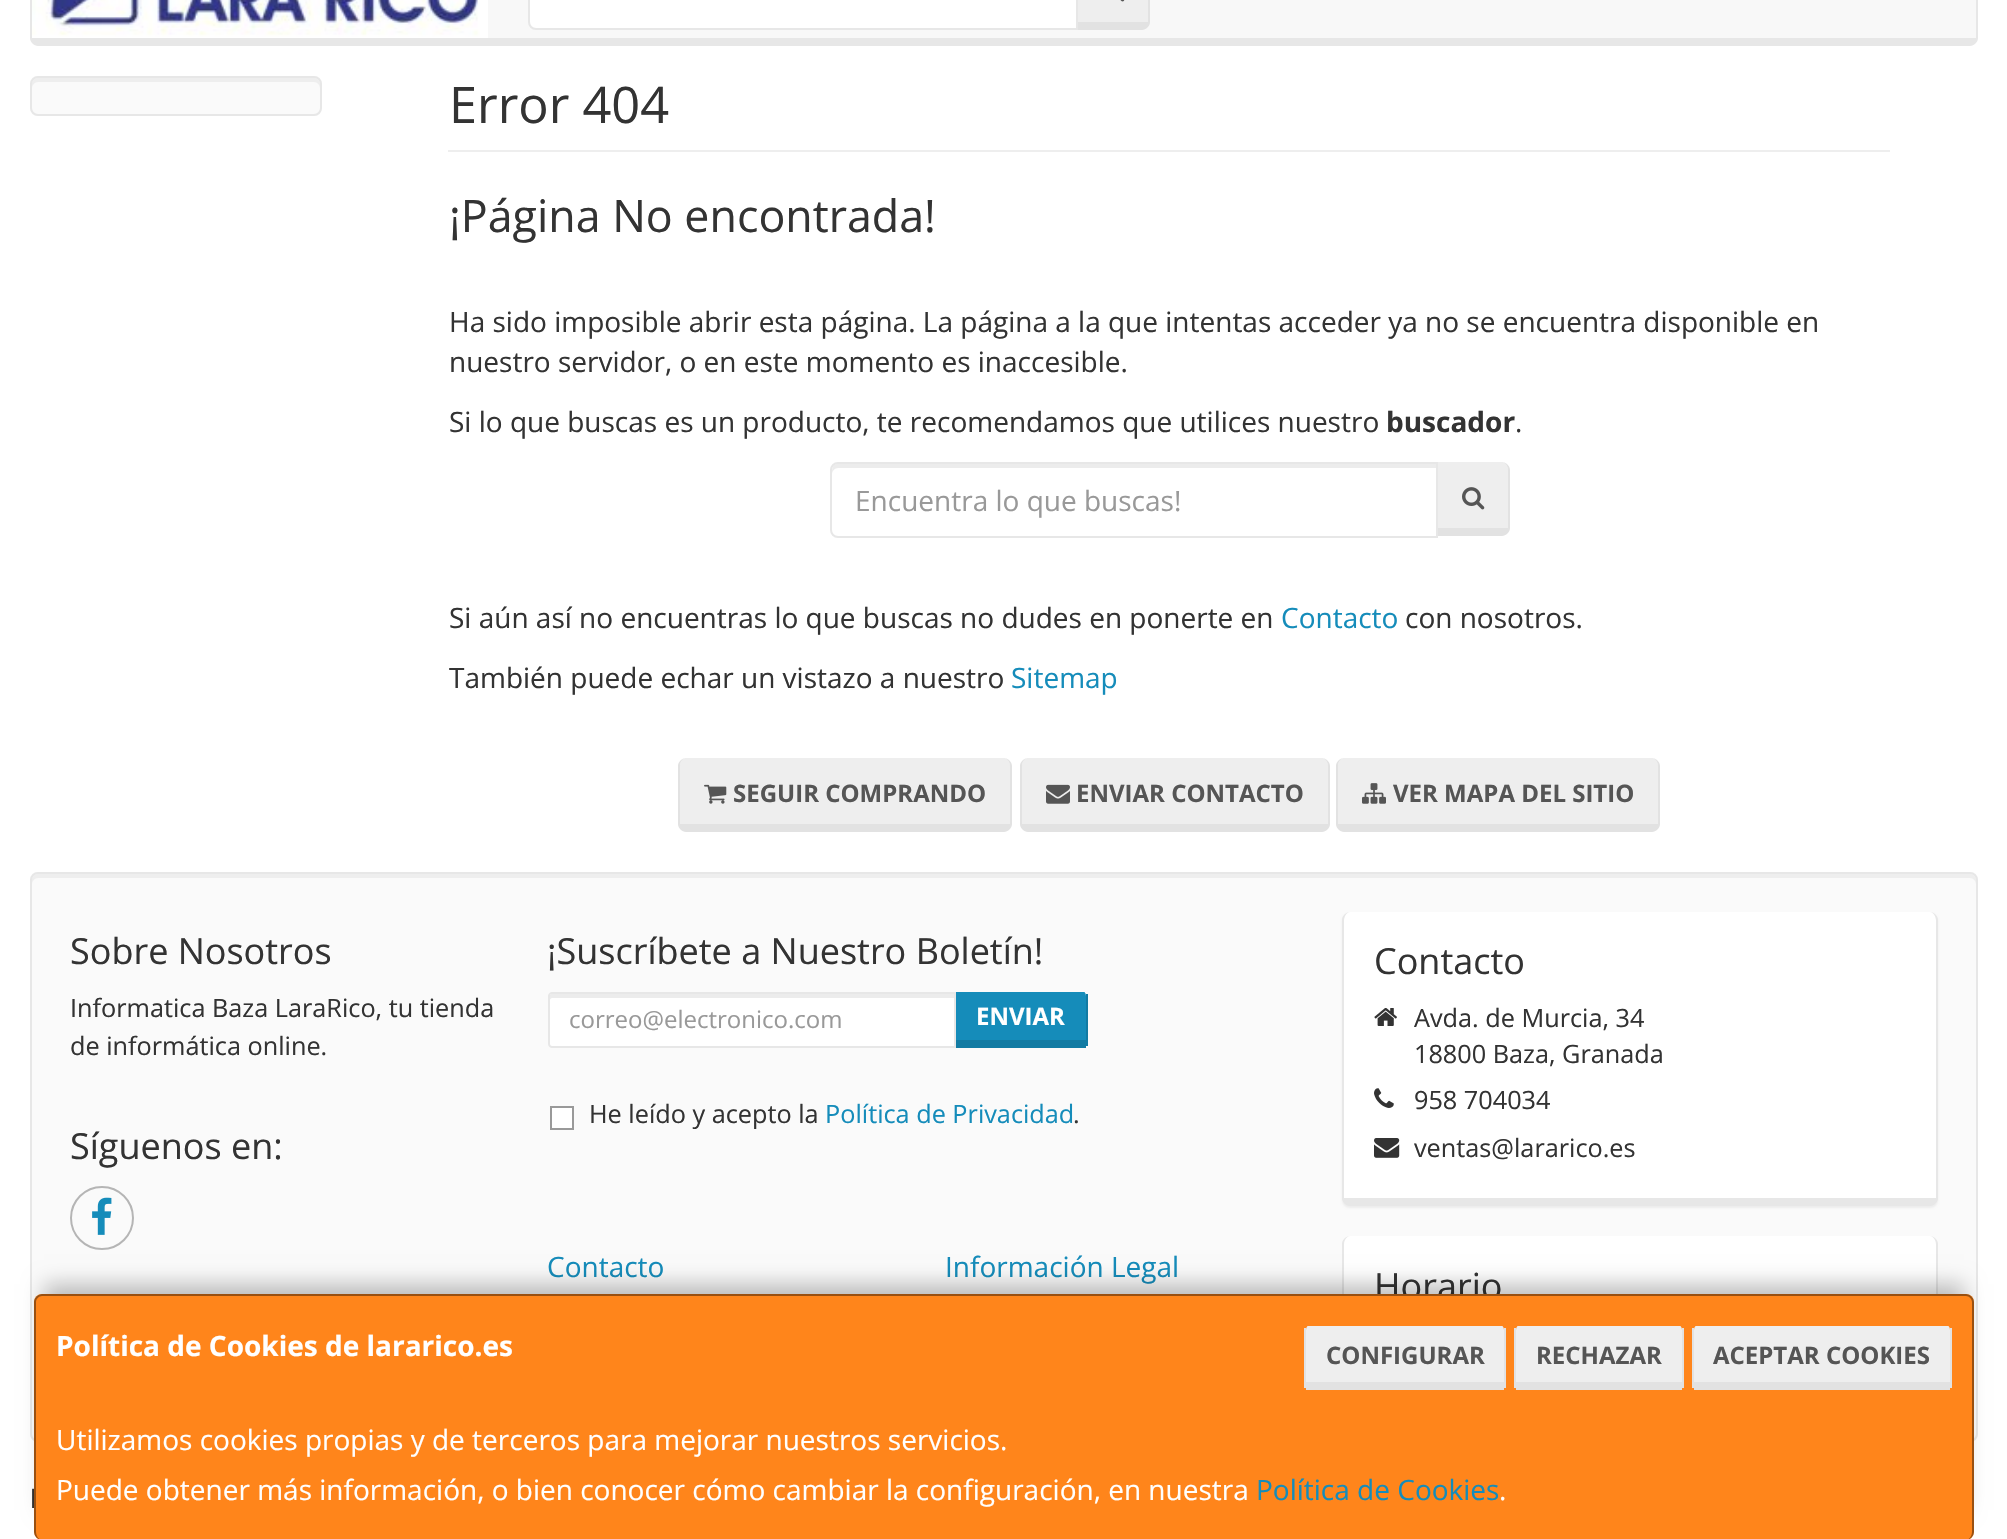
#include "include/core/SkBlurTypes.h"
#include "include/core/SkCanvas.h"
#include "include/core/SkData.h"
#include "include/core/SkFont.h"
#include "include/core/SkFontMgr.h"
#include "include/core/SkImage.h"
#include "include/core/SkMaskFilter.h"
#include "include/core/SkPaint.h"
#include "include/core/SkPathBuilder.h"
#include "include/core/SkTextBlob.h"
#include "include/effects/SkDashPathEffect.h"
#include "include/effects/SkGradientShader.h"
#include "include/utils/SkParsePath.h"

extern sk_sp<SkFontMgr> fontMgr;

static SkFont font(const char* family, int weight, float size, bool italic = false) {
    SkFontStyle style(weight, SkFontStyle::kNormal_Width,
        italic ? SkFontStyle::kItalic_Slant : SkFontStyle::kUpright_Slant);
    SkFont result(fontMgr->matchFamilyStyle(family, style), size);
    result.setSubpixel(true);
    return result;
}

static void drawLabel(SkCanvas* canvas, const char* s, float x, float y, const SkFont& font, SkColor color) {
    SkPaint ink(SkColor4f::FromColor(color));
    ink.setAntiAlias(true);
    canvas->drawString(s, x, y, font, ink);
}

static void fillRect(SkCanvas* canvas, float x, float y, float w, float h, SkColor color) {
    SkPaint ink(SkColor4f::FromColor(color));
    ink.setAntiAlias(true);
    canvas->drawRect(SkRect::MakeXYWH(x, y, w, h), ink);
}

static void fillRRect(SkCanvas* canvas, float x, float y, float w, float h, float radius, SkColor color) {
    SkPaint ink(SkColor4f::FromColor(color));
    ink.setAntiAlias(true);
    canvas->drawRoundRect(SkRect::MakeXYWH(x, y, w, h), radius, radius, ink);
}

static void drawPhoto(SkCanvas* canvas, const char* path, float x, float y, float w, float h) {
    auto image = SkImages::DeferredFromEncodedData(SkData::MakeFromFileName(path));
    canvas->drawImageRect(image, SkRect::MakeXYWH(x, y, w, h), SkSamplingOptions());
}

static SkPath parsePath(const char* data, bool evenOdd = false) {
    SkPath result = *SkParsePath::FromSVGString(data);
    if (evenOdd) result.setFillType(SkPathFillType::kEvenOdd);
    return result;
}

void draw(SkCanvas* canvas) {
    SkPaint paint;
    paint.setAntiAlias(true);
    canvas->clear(0xFFFFFFFF);
    paint.setColor(0xFFF8F8F8);
    canvas->drawPath(parsePath("M38-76H1970C1973-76 1976-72 1976-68V38H32V-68C32-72 35-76 38-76Z"), paint);
    paint.setColor(0xFFE7E7E7);
    canvas->drawPath(parsePath("M38-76H1970C1974-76 1978-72 1978-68V38C1978 42 1974 46 1970 46H38C34 46 30 42 30 38V-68C30-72 34-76 38-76ZM38-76H1970C1973-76 1976-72 1976-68V38H32V-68C32-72 35-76 38-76Z", true), paint);
    drawPhoto(canvas, "assets/img1.png", 32, 0, 456, 38);
    paint.setColor(0xFFEEEEEE);
    canvas->drawPath(parsePath("M1078-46H1142C1145-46 1148-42 1148-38V22H1078Z"), paint);
    paint.setColor(0xFFE2E2E2);
    canvas->drawPath(parsePath("M1076-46H1142C1146-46 1150-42 1150-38V22C1150 26 1146 30 1142 30H1076ZM1078-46H1142C1145-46 1148-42 1148-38V22H1078Z", true), paint);
    paint.setColor(0xFFFFFFFF);
    canvas->drawPath(parsePath("M536-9H1077V29H536C532 29 529 26 529 22V-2C529-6 532-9 536-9Z"), paint);
    paint.setStroke(true);
    paint.setStrokeWidth(2);
    paint.setColor(0xFFE7E7E7);
    canvas->drawPath(parsePath("M536-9H1077V29H536C532 29 529 26 529 22V-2C529-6 532-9 536-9Z"), paint);
    drawPhoto(canvas, "assets/img2.png", 1120, 0, 5, 2);
    fillRRect(canvas, 30, 76, 292, 40, 8, 0xFFFAFAFA);
    paint.setStroke(false);
    paint.setColor(0xFFEEEEEE);
    canvas->drawPath(parsePath("M38 82H314C317 82 320 85 320 88V84C320 81 317 78 314 78H38C35 78 32 81 32 84V88C32 85 35 82 38 82Z"), paint);
    paint.setStroke(true);
    paint.setColor(0xFFE7E7E7);
    canvas->drawRoundRect(SkRect::MakeXYWH(31, 77, 290, 38), 7, 7, paint);
    fillRect(canvas, 448, 150, 1442, 2, 0xFFEEEEEE);
    SkFont font1 = font("Open Sans", 400, 50.5f);
    drawLabel(canvas, "Error 404", 449, 123, font1, 0xFF333333);
    SkFont font2 = font("Open Sans", 400, 44.75f);
    drawLabel(canvas, "¡Página No encontrada!", 449, 232, font2, 0xFF333333);
    SkFont font3 = font("Open Sans", 400, 28);
    drawLabel(canvas, "Ha sido imposible abrir esta página. La página a la que intentas acceder ya no se encuentra disponible en", 449, 332, font3, 0xFF333333);
    drawLabel(canvas, "nuestro servidor, o en este momento es inaccesible.", 449, 372, font3, 0xFF333333);
    drawLabel(canvas, "Si lo que buscas es un producto, te recomendamos que utilices nuestro", 449, 432, font3, 0xFF333333);
    SkFont font4 = font("Open Sans", 700, 28);
    drawLabel(canvas, "buscador", 1386, 432, font4, 0xFF333333);
    drawLabel(canvas, ".", 1515, 432, font3, 0xFF333333);
    paint.setStroke(false);
    paint.setColor(0xFFEEEEEE);
    canvas->drawPath(parsePath("M1438 462H1502C1505 462 1508 466 1508 470V528H1438Z"), paint);
    paint.setColor(0xFFE2E2E2);
    canvas->drawPath(parsePath("M1436 462H1502C1506 462 1510 466 1510 470V528C1510 532 1506 536 1502 536H1436ZM1438 462H1502C1505 462 1508 466 1508 470V528H1438Z", true), paint);
    paint.setColor(0xFFFFFFFF);
    canvas->drawPath(parsePath("M838 462H1438V538H838C833.5 538 830 534.5 830 530V470C830 465.5 833.5 462 838 462Z"), paint);
    paint.setColor(0xFFECECEC);
    canvas->drawPath(parsePath("M838 468H1436V464H838C832 464 832 470 832 474C832 471 835 468 838 468Z"), paint);
    paint.setStroke(true);
    paint.setColor(0xFFE7E7E7);
    canvas->drawPath(parsePath("M838 463H1437V537H838C834 537 831 534 831 530V470C831 466 834 463 838 463Z"), paint);
    drawLabel(canvas, "Encuentra lo que buscas!", 855, 511, font3, 0xFF999999);
    drawPhoto(canvas, "assets/img3.png", 1462, 487, 23, 23);
    drawLabel(canvas, "Si aún así no encuentras lo que buscas no dudes en ponerte en", 449, 628, font3, 0xFF333333);
    drawLabel(canvas, "Contacto", 1281, 628, font3, 0xFF158CBA);
    drawLabel(canvas, "con nosotros.", 1405, 628, font3, 0xFF333333);
    drawLabel(canvas, "También puede echar un vistazo a nuestro", 449, 688, font3, 0xFF333333);
    drawLabel(canvas, "Sitemap", 1011, 688, font3, 0xFF158CBA);
    paint.setStroke(false);
    paint.setColor(0xFFEEEEEE);
    canvas->drawPath(parsePath("M686 758H1004C1007 758 1010 762 1010 766V824H680V766C680 762 683 758 686 758Z"), paint);
    paint.setColor(0xFFE2E2E2);
    canvas->drawPath(parsePath("M686 758H1004C1008 758 1012 762 1012 766V824C1012 828 1008 832 1004 832H686C682 832 678 828 678 824V766C678 762 682 758 686 758ZM686 758H1004C1007 758 1010 762 1010 766V824H680V766C680 762 683 758 686 758Z", true), paint);
    drawPhoto(canvas, "assets/img4.png", 704, 784, 23, 20);
    SkFont font5 = font("Open Sans", 700, 24);
    drawLabel(canvas, "SEGUIR COMPRANDO", 733, 802, font5, 0xFF555555);
    paint.setColor(0xFFEEEEEE);
    canvas->drawPath(parsePath("M1028 758H1322C1325 758 1328 762 1328 766V824H1022V766C1022 762 1025 758 1028 758Z"), paint);
    paint.setColor(0xFFE2E2E2);
    canvas->drawPath(parsePath("M1028 758H1322C1326 758 1330 762 1330 766V824C1330 828 1326 832 1322 832H1028C1024 832 1020 828 1020 824V766C1020 762 1024 758 1028 758ZM1028 758H1322C1325 758 1328 762 1328 766V824H1022V766C1022 762 1025 758 1028 758Z", true), paint);
    drawPhoto(canvas, "assets/img5.png", 1046, 784, 24, 20);
    drawLabel(canvas, "ENVIAR CONTACTO", 1076, 802, font5, 0xFF555555);
    paint.setColor(0xFFEEEEEE);
    canvas->drawPath(parsePath("M1344 758H1652C1655 758 1658 762 1658 766V824H1338V766C1338 762 1341 758 1344 758Z"), paint);
    paint.setColor(0xFFE2E2E2);
    canvas->drawPath(parsePath("M1344 758H1652C1656 758 1660 762 1660 766V824C1660 828 1656 832 1652 832H1344C1340 832 1336 828 1336 824V766C1336 762 1340 758 1344 758ZM1344 758H1652C1655 758 1658 762 1658 766V824H1338V766C1338 762 1341 758 1344 758Z", true), paint);
    drawPhoto(canvas, "assets/img6.png", 1362, 783, 24, 21);
    drawLabel(canvas, "VER MAPA DEL SITIO", 1393, 802, font5, 0xFF555555);
    fillRRect(canvas, 30, 872, 1948, 570, 8, 0xFFFAFAFA);
    paint.setColor(0xFFEEEEEE);
    canvas->drawPath(parsePath("M38 878H1970C1973 878 1976 881 1976 884V880C1976 877 1973 874 1970 874H38C35 874 32 877 32 880V884C32 881 35 878 38 878Z"), paint);
    paint.setStroke(true);
    paint.setColor(0xFFE7E7E7);
    canvas->drawRoundRect(SkRect::MakeXYWH(31, 873, 1946, 568), 7, 7, paint);
    SkFont font6 = font("Open Sans", 400, 36);
    drawLabel(canvas, "Sobre Nosotros", 70, 964, font6, 0xFF333333);
    SkFont font7 = font("Open Sans", 400, 25.25f);
    drawLabel(canvas, "Informatica Baza LaraRico, tu tienda", 70, 1017, font7, 0xFF333333);
    drawLabel(canvas, "de informática online.", 70, 1055, font7, 0xFF333333);
    drawLabel(canvas, "Síguenos en:", 70, 1159, font6, 0xFF333333);
    paint.setColor(0xFFB5B5B5);
    canvas->drawCircle(102, 1218, 31, paint);
    drawPhoto(canvas, "assets/img7.png", 92, 1197, 20, 38);
    drawLabel(canvas, "¡Suscríbete a Nuestro Boletín!", 547, 964, font6, 0xFF333333);
    fillRect(canvas, 954, 1040, 132, 8, 0xFF127BA3);
    paint.setStroke(false);
    paint.setColor(0xFFFFFFFF);
    canvas->drawPath(parsePath("M552 992H956V1048H552C550 1048 548 1046 548 1044V996C548 994 550 992 552 992Z"), paint);
    paint.setColor(0xFFECECEC);
    canvas->drawPath(parsePath("M552 998H954V994H552C549 994 550 998 550 1000C550 999 551 998 552 998Z"), paint);
    paint.setStroke(true);
    paint.setColor(0xFFE7E7E7);
    canvas->drawPath(parsePath("M552 993H955V1047H552C550.5 1047 549 1045.5 549 1044V996C549 994.5 550.5 993 552 993Z"), paint);
    SkFont font8 = font("Open Sans", 400, 24);
    drawLabel(canvas, "correo@electronico.com", 569, 1028, font8, 0xFF999999);
    paint.setStroke(false);
    paint.setColor(0xFF158CBA);
    canvas->drawPath(parsePath("M956 992H1084C1085 992 1086 994 1086 996V1040H956Z"), paint);
    fillRect(canvas, 1086, 994, 2, 52, 0xFF127BA3);
    drawLabel(canvas, "ENVIAR", 976, 1025, font5, 0xFFFFFFFF);
    paint.setColor(0xFFFFFFFF);
    canvas->drawRect(SkRect::MakeXYWH(551, 1107, 22, 22), paint);
    paint.setStroke(true);
    paint.setColor(0xFF999999);
    canvas->drawRect(SkRect::MakeXYWH(551, 1107, 22, 22), paint);
    drawLabel(canvas, "He leído y acepto la", 589, 1123, font7, 0xFF333333);
    drawLabel(canvas, "Política de Privacidad", 825, 1123, font7, 0xFF158CBA);
    drawLabel(canvas, ".", 1073, 1123, font7, 0xFF333333);
    drawLabel(canvas, "Contacto", 547, 1277, font3, 0xFF158CBA);
    drawLabel(canvas, "Información Legal", 945, 1277, font3, 0xFF158CBA);
    paint.setStroke(false);
    paint.setColor(0x0D000000);
    paint.setMaskFilter(SkMaskFilter::MakeBlur(kNormal_SkBlurStyle, 1));
    canvas->drawRoundRect(SkRect::MakeXYWH(1342, 914, 596, 294), 8, 8, paint);
    paint.setMaskFilter(nullptr);
    paint.setColor(0xFFFFFFFF);
    canvas->drawPath(parsePath("M1350 912H1930C1933 912 1936 916 1936 920V1198H1344V920C1344 916 1347 912 1350 912Z"), paint);
    paint.setColor(0xFFE7E7E7);
    canvas->drawPath(parsePath("M1350 912H1930C1934 912 1938 916 1938 920V1198C1938 1202 1934 1206 1930 1206H1350C1346 1206 1342 1202 1342 1198V920C1342 916 1346 912 1350 912ZM1350 912H1930C1933 912 1936 916 1936 920V1198H1344V920C1344 916 1347 912 1350 912Z", true), paint);
    drawLabel(canvas, "Contacto", 1374, 974, font6, 0xFF333333);
    drawPhoto(canvas, "assets/img8.png", 1374, 1008, 23, 18);
    drawLabel(canvas, "Avda. de Murcia, 34", 1414, 1027, font7, 0xFF333333);
    drawLabel(canvas, "18800 Baza, Granada", 1414, 1063, font7, 0xFF333333);
    drawPhoto(canvas, "assets/img9.png", 1374, 1088, 20, 20);
    drawLabel(canvas, "958 704034", 1414, 1109, font7, 0xFF333333);
    drawPhoto(canvas, "assets/img10.png", 1374, 1138, 26, 20);
    drawLabel(canvas, "ventas@lararico.es", 1414, 1157, font7, 0xFF333333);
    paint.setColor(0xFFFFFFFF);
    canvas->drawPath(parsePath("M1350 1236H1930C1933 1236 1936 1240 1936 1244V1394H1344V1244C1344 1240 1347 1236 1350 1236Z"), paint);
    paint.setColor(0xFFE7E7E7);
    canvas->drawPath(parsePath("M1350 1236H1930C1934 1236 1938 1240 1938 1244V1394C1938 1398 1934 1402 1930 1402H1350C1346 1402 1342 1398 1342 1394V1244C1342 1240 1346 1236 1350 1236ZM1350 1236H1930C1933 1236 1936 1240 1936 1244V1394H1344V1244C1344 1240 1347 1236 1350 1236Z", true), paint);
    drawLabel(canvas, "Horario", 1374, 1299, font6, 0xFF333333);
    drawLabel(canvas, "l", 30, 1508, font7, 0xFF333333);
    paint.setColor(0x40000000);
    paint.setMaskFilter(SkMaskFilter::MakeBlur(kNormal_SkBlurStyle, 10));
    canvas->drawRect(SkRect::MakeXYWH(44, 1284, 1920, 226), paint);
    paint.setMaskFilter(nullptr);
    fillRRect(canvas, 34, 1294, 1940, 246, 8, 0xFFFF851B);
    paint.setColor(0x66000000);
    canvas->drawPath(parsePath("M42 1294H1966C1970 1294 1974 1298 1974 1302V1532C1974 1536 1970 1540 1966 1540H42C38 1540 34 1536 34 1532V1302C34 1298 38 1294 42 1294ZM42 1296H1966C1969 1296 1972 1299 1972 1302V1532C1972 1536 1969 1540 1966 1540H42C39 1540 36 1536 36 1532V1302C36 1299 39 1296 42 1296Z", true), paint);
    drawLabel(canvas, "Política de Cookies de lararico.es", 56, 1356, font4, 0xFFFFFFFF);
    paint.setColor(0xFFEEEEEE);
    canvas->drawPath(parsePath("M1308 1326H1502C1503 1326 1504 1328 1504 1330V1382H1306V1330C1306 1328 1307 1326 1308 1326Z"), paint);
    fillRect(canvas, 1504, 1328, 2, 60, 0xFFE2E2E2);
    fillRect(canvas, 1306, 1382, 198, 8, 0xFFE2E2E2);
    fillRect(canvas, 1304, 1328, 2, 60, 0xFFE2E2E2);
    drawLabel(canvas, "CONFIGURAR", 1326, 1364, font5, 0xFF555555);
    canvas->drawPath(parsePath("M1518 1326H1680C1681 1326 1682 1328 1682 1330V1382H1516V1330C1516 1328 1517 1326 1518 1326Z"), paint);
    fillRect(canvas, 1682, 1328, 2, 60, 0xFFE2E2E2);
    fillRect(canvas, 1516, 1382, 166, 8, 0xFFE2E2E2);
    fillRect(canvas, 1514, 1328, 2, 60, 0xFFE2E2E2);
    drawLabel(canvas, "RECHAZAR", 1536, 1364, font5, 0xFF555555);
    canvas->drawPath(parsePath("M1696 1326H1948C1949 1326 1950 1328 1950 1330V1382H1694V1330C1694 1328 1695 1326 1696 1326Z"), paint);
    fillRect(canvas, 1950, 1328, 2, 60, 0xFFE2E2E2);
    fillRect(canvas, 1694, 1382, 256, 8, 0xFFE2E2E2);
    fillRect(canvas, 1692, 1328, 2, 60, 0xFFE2E2E2);
    drawLabel(canvas, "ACEPTAR COOKIES", 1713, 1364, font5, 0xFF555555);
    drawLabel(canvas, "Utilizamos cookies propias y de terceros para mejorar nuestros servicios.", 56, 1450, font3, 0xFFFFFFFF);
    drawLabel(canvas, "Puede obtener más información, o bien conocer cómo cambiar la configuración, en nuestra", 56, 1500, font3, 0xFFFFFFFF);
    drawLabel(canvas, "Política de Cookies", 1256, 1500, font3, 0xFF158CBA);
    drawLabel(canvas, ".", 1499, 1500, font3, 0xFFFFFFFF);
}
